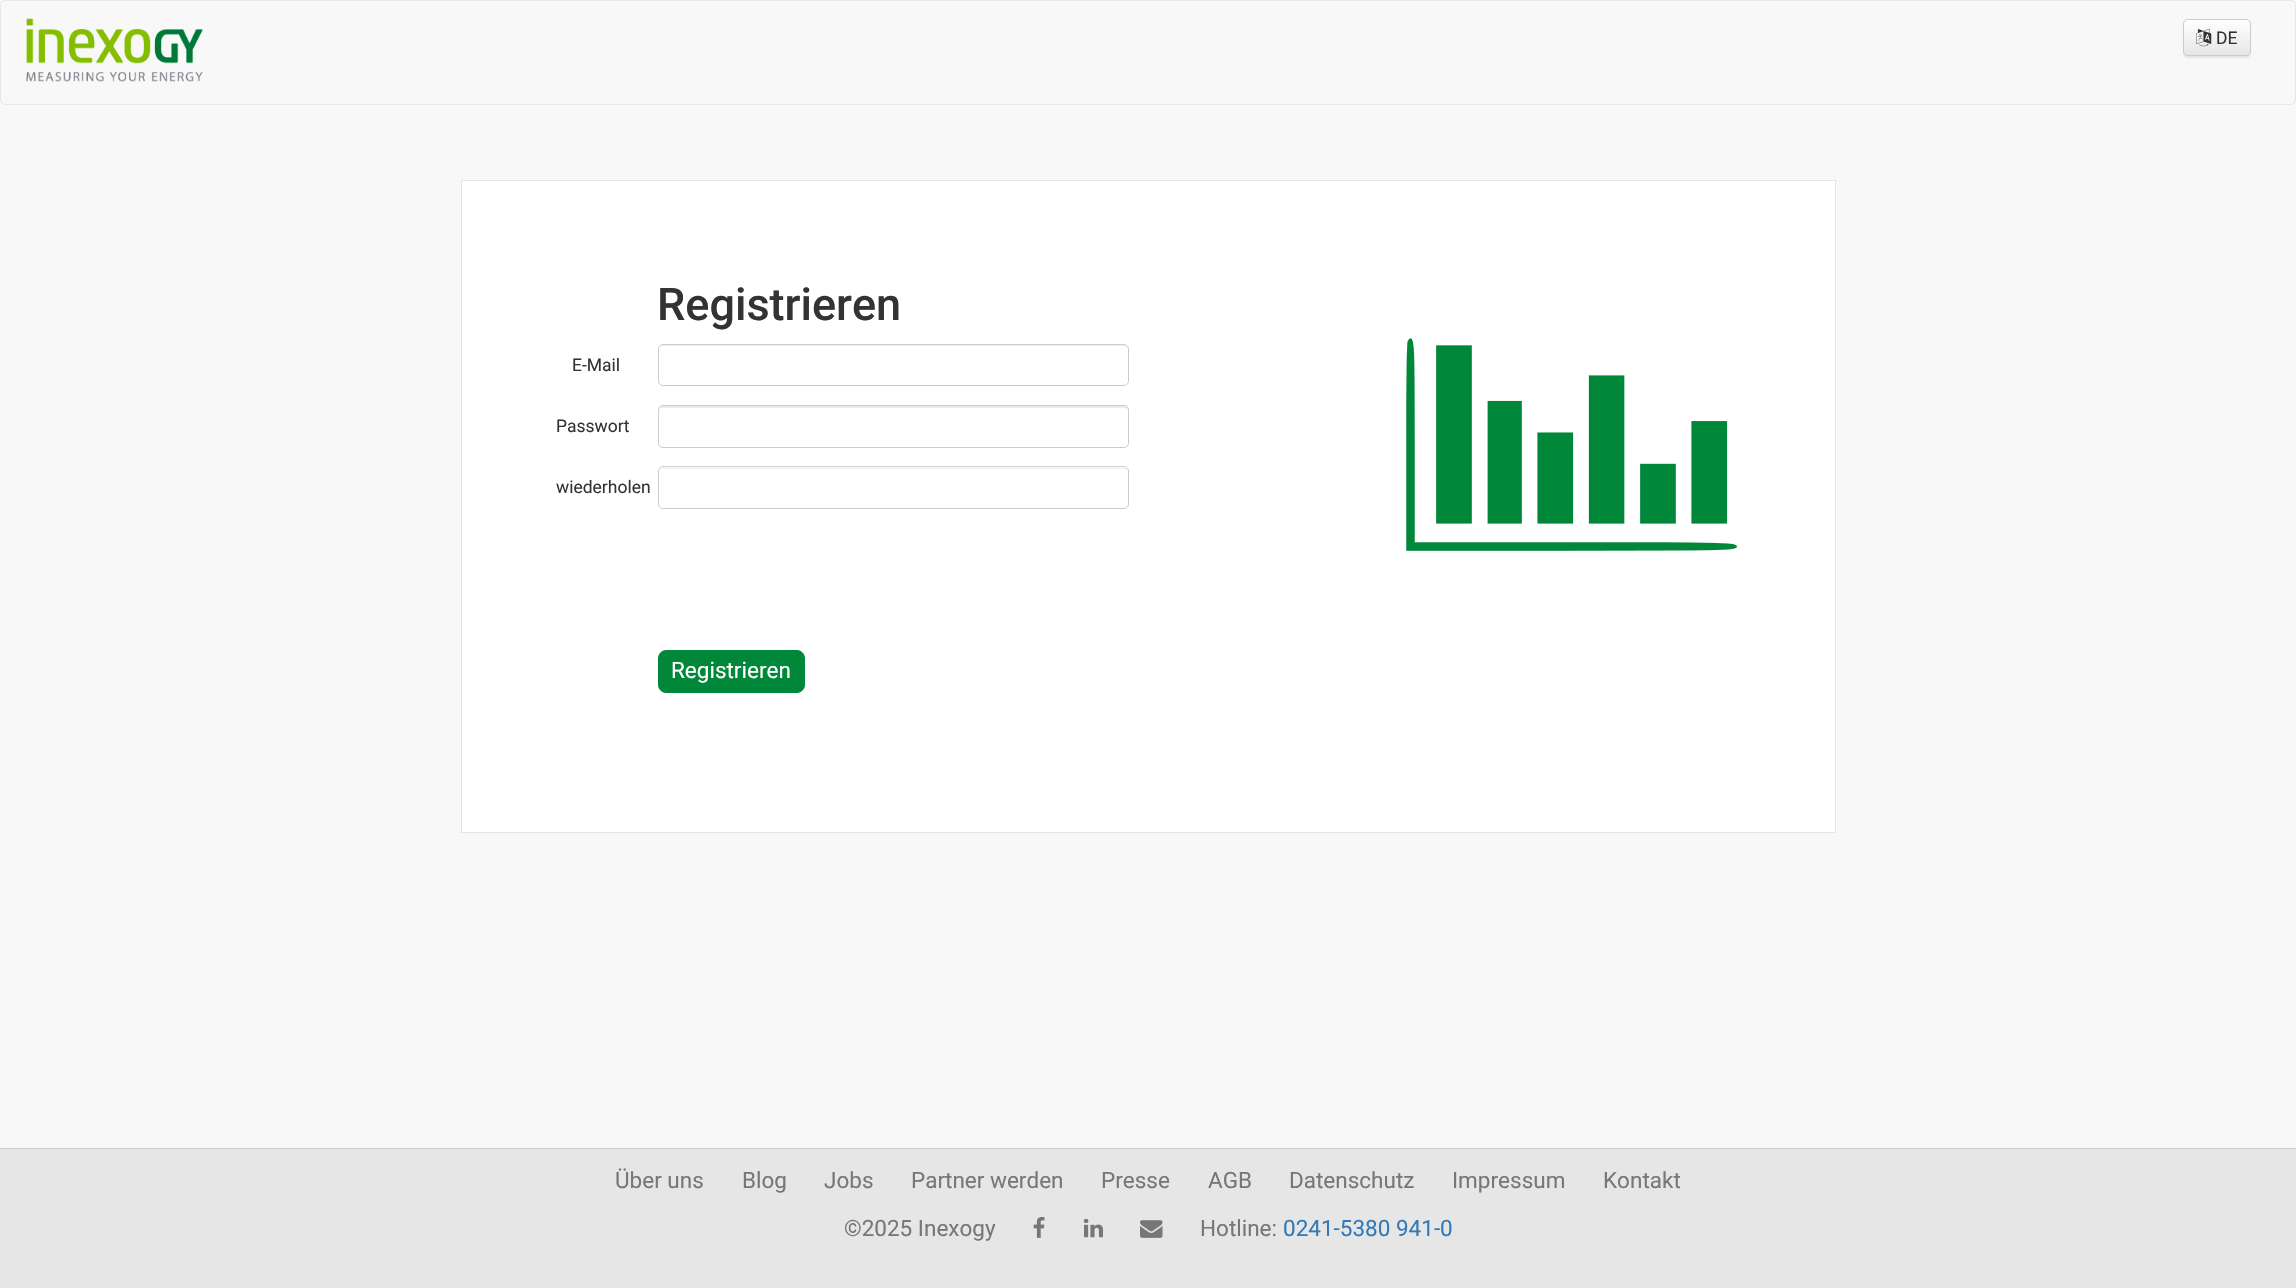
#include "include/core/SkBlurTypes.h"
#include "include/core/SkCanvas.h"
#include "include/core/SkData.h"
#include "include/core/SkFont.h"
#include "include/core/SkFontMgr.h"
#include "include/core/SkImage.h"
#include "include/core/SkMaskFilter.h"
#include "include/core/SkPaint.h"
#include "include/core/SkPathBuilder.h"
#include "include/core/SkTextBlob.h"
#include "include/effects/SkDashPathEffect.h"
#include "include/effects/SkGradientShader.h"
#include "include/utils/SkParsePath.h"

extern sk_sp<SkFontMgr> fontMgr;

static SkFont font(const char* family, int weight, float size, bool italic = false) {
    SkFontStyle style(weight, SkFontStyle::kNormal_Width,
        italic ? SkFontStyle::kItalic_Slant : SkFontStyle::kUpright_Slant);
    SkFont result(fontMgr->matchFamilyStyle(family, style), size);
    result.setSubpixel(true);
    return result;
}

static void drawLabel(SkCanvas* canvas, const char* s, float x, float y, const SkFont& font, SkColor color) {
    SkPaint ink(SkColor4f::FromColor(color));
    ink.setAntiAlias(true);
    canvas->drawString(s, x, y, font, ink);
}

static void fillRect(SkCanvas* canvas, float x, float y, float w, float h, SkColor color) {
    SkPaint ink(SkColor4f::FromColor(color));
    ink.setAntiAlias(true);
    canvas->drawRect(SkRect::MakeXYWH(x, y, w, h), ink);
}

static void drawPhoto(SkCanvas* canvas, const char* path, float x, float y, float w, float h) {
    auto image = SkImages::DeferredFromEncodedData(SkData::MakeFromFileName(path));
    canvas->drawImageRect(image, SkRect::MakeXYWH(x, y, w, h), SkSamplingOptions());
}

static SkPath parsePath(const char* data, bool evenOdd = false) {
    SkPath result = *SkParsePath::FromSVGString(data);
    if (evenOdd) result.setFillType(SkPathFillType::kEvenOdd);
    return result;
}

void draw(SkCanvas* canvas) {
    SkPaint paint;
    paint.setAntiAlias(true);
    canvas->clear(0xFFF8F8F8);
    paint.setStroke(true);
    paint.setStrokeWidth(1);
    paint.setColor(0xFFE7E7E7);
    canvas->drawRoundRect(SkRect::MakeXYWH(0.5f, 0.5f, 2295, 104), 4.5f, 4.5f, paint);
    drawPhoto(canvas, "assets/img1.png", 26, 18, 177, 64);
    paint.setStroke(false);
    paint.setColor(0x12000000);
    paint.setMaskFilter(SkMaskFilter::MakeBlur(kNormal_SkBlurStyle, 0.5f));
    canvas->drawRoundRect(SkRect::MakeXYWH(2183, 20, 68, 38), 5, 5, paint);
    paint.setMaskFilter(nullptr);
    canvas->save();
    canvas->clipPath(parsePath("M2188 19H2246C2249 19 2251 21 2251 24V51C2251 54 2249 56 2246 56H2188C2185 56 2183 54 2183 51V24C2183 21 2185 19 2188 19Z"), true);
    {
        const SkColor colors[] = {0xFFFFFFFF, 0xFFE6E6E6};
        const float stops[] = {0, 1};
        const SkPoint ends[] = {{2217, 20}, {2217, 55}};
        paint.setShader(SkGradientShader::MakeLinear(ends, colors, stops, 2, SkTileMode::kClamp));
        paint.setAlpha(255);
    }
    canvas->drawRect(SkRect::MakeXYWH(2183, 20, 68, 35), paint);
    canvas->restore();
    paint.setStroke(true);
    paint.setShader(nullptr);
    paint.setColor(0xFFCCCCCC);
    canvas->drawRoundRect(SkRect::MakeXYWH(2183.5f, 19.5f, 67, 36), 4.5f, 4.5f, paint);
    drawPhoto(canvas, "assets/img2.png", 2196, 28, 16, 19);
    SkFont font1 = font("Roboto", 400, 17.5f);
    drawLabel(canvas, "DE", 2216, 44, font1, 0xFF333333);
    paint.setStroke(false);
    paint.setColor(0xFFFFFFFF);
    canvas->drawRect(SkRect::MakeXYWH(461.5f, 180.5f, 1374, 652), paint);
    paint.setStroke(true);
    paint.setColor(0xFFE5E5E5);
    canvas->drawRect(SkRect::MakeXYWH(461.5f, 180.5f, 1374, 652), paint);
    SkFont font2 = font("Roboto", 500, 45);
    drawLabel(canvas, "Registrieren", 657, 320, font2, 0xFF333333);
    drawLabel(canvas, "E-Mail", 572, 371, font1, 0xFF333333);
    paint.setStroke(false);
    paint.setColor(0xFFECECEC);
    canvas->drawPath(parsePath("M662 346H1124C1126 346 1128 348 1128 350C1128 347 1127 345 1124 345H663C660 345 659 347 659 350C659 348 660 346 662 346Z"), paint);
    paint.setStroke(true);
    paint.setColor(0xFFCCCCCC);
    canvas->drawRoundRect(SkRect::MakeXYWH(658.5f, 344.5f, 470, 41), 4.5f, 4.5f, paint);
    drawLabel(canvas, "Passwort", 556, 432, font1, 0xFF333333);
    paint.setStroke(false);
    paint.setColor(0xFFECECEC);
    canvas->drawPath(parsePath("M662 408H1124C1126 408 1128 409 1128 411C1128 408 1127 406 1124 406H663C660 406 659 408 659 411C659 409 660 408 662 408Z"), paint);
    paint.setStroke(true);
    paint.setColor(0xFFCCCCCC);
    canvas->drawRoundRect(SkRect::MakeXYWH(658.5f, 405.5f, 470, 42), 4.5f, 4.5f, paint);
    drawLabel(canvas, "wiederholen", 556, 493, font1, 0xFF333333);
    paint.setStroke(false);
    paint.setColor(0xFFECECEC);
    canvas->drawPath(parsePath("M662 469H1124C1126 469 1128 470 1128 472C1128 470 1126 468 1124 468H663C662 468 660 469 660 470Z"), paint);
    paint.setStroke(true);
    paint.setColor(0xFFCCCCCC);
    canvas->drawRoundRect(SkRect::MakeXYWH(658.5f, 466.5f, 470, 42), 4.5f, 4.5f, paint);
    paint.setStroke(false);
    paint.setColor(0xFF008739);
    canvas->drawRoundRect(SkRect::MakeXYWH(658.5f, 650.5f, 146, 42), 7.5f, 7.5f, paint);
    paint.setStroke(true);
    canvas->drawRoundRect(SkRect::MakeXYWH(658.5f, 650.5f, 146, 42), 7.5f, 7.5f, paint);
    SkFont font3 = font("Roboto", 400, 22.5f);
    drawLabel(canvas, "Registrieren", 671, 678, font3, 0xFFFFFFFF);
    drawPhoto(canvas, "assets/img3.png", 1406, 338, 331, 213);
    fillRect(canvas, 0, 1149, 2296, 139, 0xFFE6E6E6);
    fillRect(canvas, 0, 1148, 2296, 1, 0xFFCBCBCB);
    drawLabel(canvas, "Über uns", 615, 1188, font3, 0xFF777777);
    drawLabel(canvas, "Blog", 742, 1188, font3, 0xFF777777);
    drawLabel(canvas, "Jobs", 824, 1188, font3, 0xFF777777);
    drawLabel(canvas, "Partner werden", 911, 1188, font3, 0xFF777777);
    drawLabel(canvas, "Presse", 1101, 1188, font3, 0xFF777777);
    drawLabel(canvas, "AGB", 1208, 1188, font3, 0xFF777777);
    drawLabel(canvas, "Datenschutz", 1289, 1188, font3, 0xFF777777);
    drawLabel(canvas, "Impressum", 1452, 1188, font3, 0xFF777777);
    drawLabel(canvas, "Kontakt", 1603, 1188, font3, 0xFF777777);
    drawLabel(canvas, "©2025 Inexogy", 844, 1236, font3, 0xFF777777);
    drawPhoto(canvas, "assets/img4.png", 1033, 1217, 12, 21);
    drawPhoto(canvas, "assets/img5.png", 1083, 1218, 20, 20);
    drawPhoto(canvas, "assets/img6.png", 1140, 1220, 23, 18);
    drawLabel(canvas, "Hotline:", 1200, 1236, font3, 0xFF777777);
    drawLabel(canvas, "0241-5380 941-0", 1283, 1236, font3, 0xFF337AB7);
}
